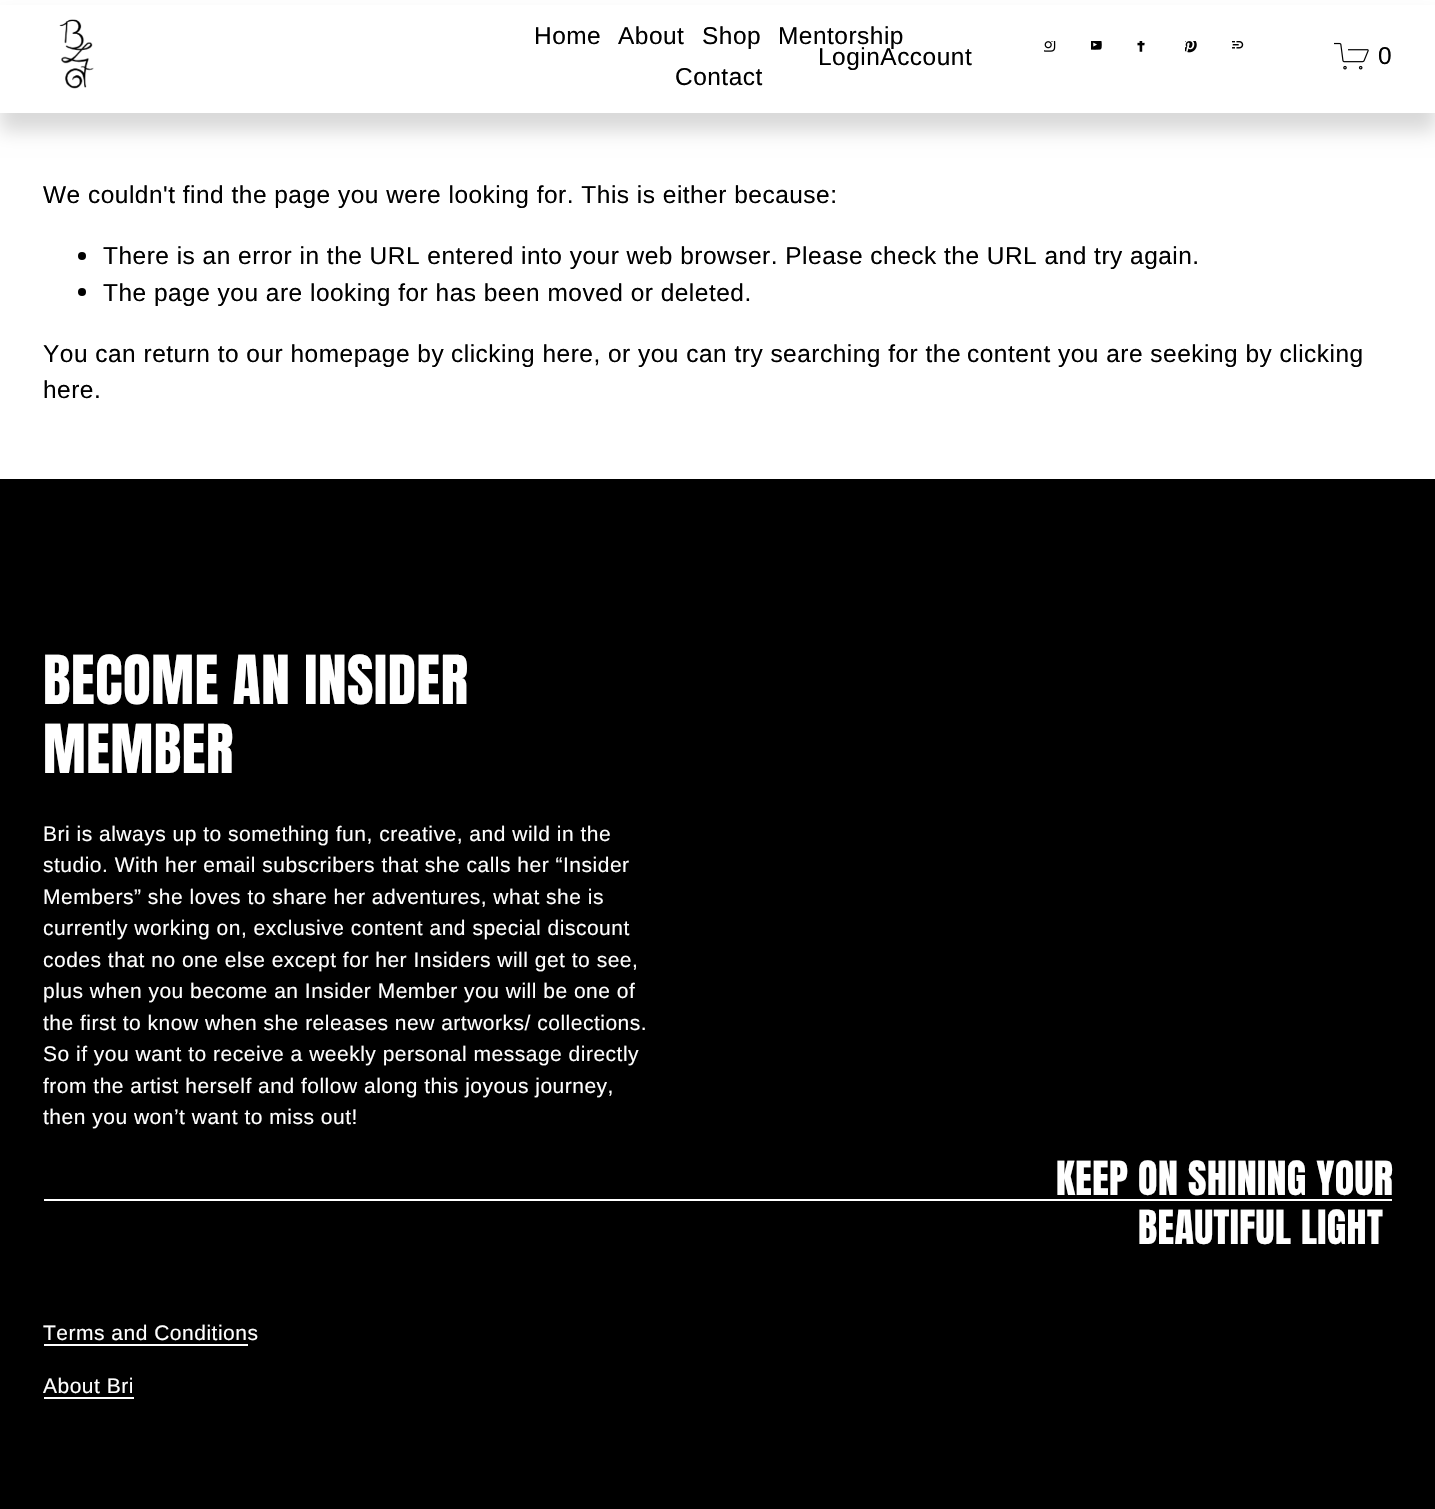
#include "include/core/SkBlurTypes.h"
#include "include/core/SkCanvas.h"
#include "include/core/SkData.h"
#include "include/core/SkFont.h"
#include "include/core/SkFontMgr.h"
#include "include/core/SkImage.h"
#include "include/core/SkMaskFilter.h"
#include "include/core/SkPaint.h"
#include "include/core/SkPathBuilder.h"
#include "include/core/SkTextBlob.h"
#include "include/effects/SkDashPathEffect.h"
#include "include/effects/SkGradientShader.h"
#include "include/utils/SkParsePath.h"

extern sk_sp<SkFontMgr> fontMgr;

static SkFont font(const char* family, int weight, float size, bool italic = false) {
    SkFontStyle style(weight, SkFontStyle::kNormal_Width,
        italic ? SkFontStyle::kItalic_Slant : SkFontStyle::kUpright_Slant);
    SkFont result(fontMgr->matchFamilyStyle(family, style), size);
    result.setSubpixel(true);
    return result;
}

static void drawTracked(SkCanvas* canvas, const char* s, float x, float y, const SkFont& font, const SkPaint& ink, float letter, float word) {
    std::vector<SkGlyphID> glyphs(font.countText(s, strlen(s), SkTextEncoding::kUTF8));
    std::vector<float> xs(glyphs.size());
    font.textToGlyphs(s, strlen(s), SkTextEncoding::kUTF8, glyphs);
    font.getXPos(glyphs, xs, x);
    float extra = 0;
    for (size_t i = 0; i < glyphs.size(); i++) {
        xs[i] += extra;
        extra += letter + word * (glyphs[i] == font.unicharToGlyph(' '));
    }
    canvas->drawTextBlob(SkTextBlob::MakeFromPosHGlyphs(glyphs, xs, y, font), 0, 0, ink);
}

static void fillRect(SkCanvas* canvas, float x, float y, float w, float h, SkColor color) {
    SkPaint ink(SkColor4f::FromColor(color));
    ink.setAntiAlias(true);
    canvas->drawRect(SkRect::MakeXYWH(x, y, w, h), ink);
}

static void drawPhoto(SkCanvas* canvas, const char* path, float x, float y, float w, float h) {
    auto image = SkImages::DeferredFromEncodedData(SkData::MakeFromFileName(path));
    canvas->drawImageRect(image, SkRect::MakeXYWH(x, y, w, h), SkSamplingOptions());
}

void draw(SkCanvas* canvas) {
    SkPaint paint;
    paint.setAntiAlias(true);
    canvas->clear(0xFFFFFFFF);
    paint.setColor(0xFFD9D9D9);
    paint.setMaskFilter(SkMaskFilter::MakeBlur(kNormal_SkBlurStyle, 9));
    canvas->drawRect(SkRect::MakeXYWH(0, 18, 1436, 113), paint);
    paint.setMaskFilter(nullptr);
    fillRect(canvas, 0, 5, 1435, 108, 0xFFFFFFFF);
    drawPhoto(canvas, "assets/img1.png", 59, 19, 35, 70);
    SkFont font1 = font("Liberation Sans", 400, 24.45f);
    paint.setColor(0xFF000000);
    drawTracked(canvas, "Home", 534, 44, font1, paint, 0.5f, 0);
    drawTracked(canvas, "About", 618, 44, font1, paint, 0.5f, 0);
    drawTracked(canvas, "Shop", 702, 44, font1, paint, 0.5f, 0);
    drawTracked(canvas, "Mentorship", 778, 44, font1, paint, 0.5f, 0);
    drawTracked(canvas, "Contact", 675, 85, font1, paint, 0.5f, 0);
    drawTracked(canvas, "LoginAccount", 818, 65, font1, paint, 0.5f, 0);
    drawPhoto(canvas, "assets/img2.png", 1044, 41, 12, 11);
    drawPhoto(canvas, "assets/img3.png", 1091, 41, 11, 9);
    drawPhoto(canvas, "assets/img4.png", 1137, 41, 8, 11);
    drawPhoto(canvas, "assets/img5.png", 1185, 41, 12, 12);
    drawPhoto(canvas, "assets/img6.png", 1232, 41, 12, 8);
    drawPhoto(canvas, "assets/img7.png", 1334, 42, 35, 28);
    drawTracked(canvas, "0", 1378, 64, font1, paint, 0.5f, 0);
    drawTracked(canvas, "We couldn't find the page you were looking for. This is either because:", 43, 203, font1, paint, 0.5f, 0);
    canvas->drawCircle(82, 256, 4, paint);
    drawTracked(canvas, "There is an error in the URL entered into your web browser. Please check the URL and try again.", 103, 264, font1, paint, 0.5f, 0);
    canvas->drawCircle(82, 292, 4, paint);
    drawTracked(canvas, "The page you are looking for has been moved or deleted.", 103, 301, font1, paint, 0.5f, 0);
    drawTracked(canvas, "You can return to our homepage by", 43, 362, font1, paint, 0.5f, 0);
    drawTracked(canvas, "clicking here, or you can try searching for the", 451, 362, font1, paint, 0.5f, 0);
    drawTracked(canvas, "content you are seeking by clicking", 967, 362, font1, paint, 0.5f, 0);
    drawTracked(canvas, "here.", 43, 398, font1, paint, 0.5f, 0);
    fillRect(canvas, 0, 479, 1435, 1030, 0xFF000000);
    SkFont font2 = font("Anton", 400, 57.25f);
    paint.setColor(0xFFFFFFFF);
    drawTracked(canvas, "BECOME AN INSIDER", 43, 704, font2, paint, 0.6f, 0);
    drawTracked(canvas, "MEMBER", 43, 773, font2, paint, 0.6f, 0);
    SkFont font3 = font("Liberation Sans", 400, 21);
    drawTracked(canvas, "Bri is always up to something fun, creative, and wild in the", 43, 841, font3, paint, 0.5f, 0);
    drawTracked(canvas, "studio. With her email subscribers that she calls her “Insider", 43, 872, font3, paint, 0.5f, 0);
    drawTracked(canvas, "Members” she loves to share her adventures, what she is", 43, 904, font3, paint, 0.5f, 0);
    drawTracked(canvas, "currently working on, exclusive content and special discount", 43, 935, font3, paint, 0.5f, 0);
    drawTracked(canvas, "codes that no one else except for her Insiders will get to see,", 43, 967, font3, paint, 0.5f, 0);
    drawTracked(canvas, "plus when you become an Insider Member you will be one of", 43, 998, font3, paint, 0.5f, 0);
    drawTracked(canvas, "the first to know when she releases new artworks/ collections.", 43, 1030, font3, paint, 0.5f, 0);
    drawTracked(canvas, "So if you want to receive a weekly personal message directly", 43, 1061, font3, paint, 0.5f, 0);
    drawTracked(canvas, "from the artist herself and follow along this joyous journey,", 43, 1093, font3, paint, 0.5f, 0);
    drawTracked(canvas, "then you won’t want to miss out!", 43, 1124, font3, paint, 0.5f, 0);
    SkFont font4 = font("Anton", 400, 40);
    drawTracked(canvas, "KEEP ON SHINING YOUR", 1056, 1195, font4, paint, 0.4f, 0);
    drawTracked(canvas, "BEAUTIFUL LIGHT", 1138, 1244, font4, paint, 0.4f, 0);
    fillRect(canvas, 44, 1199, 1348, 2, 0xFFFFFFFF);
    drawTracked(canvas, "Terms and Conditions", 43, 1340, font3, paint, 0.5f, 0);
    fillRect(canvas, 44, 1344, 204, 2, 0xFFFFFFFF);
    drawTracked(canvas, "About Bri", 43, 1393, font3, paint, 0.5f, 0);
    fillRect(canvas, 44, 1397, 90, 2, 0xFFFFFFFF);
}
